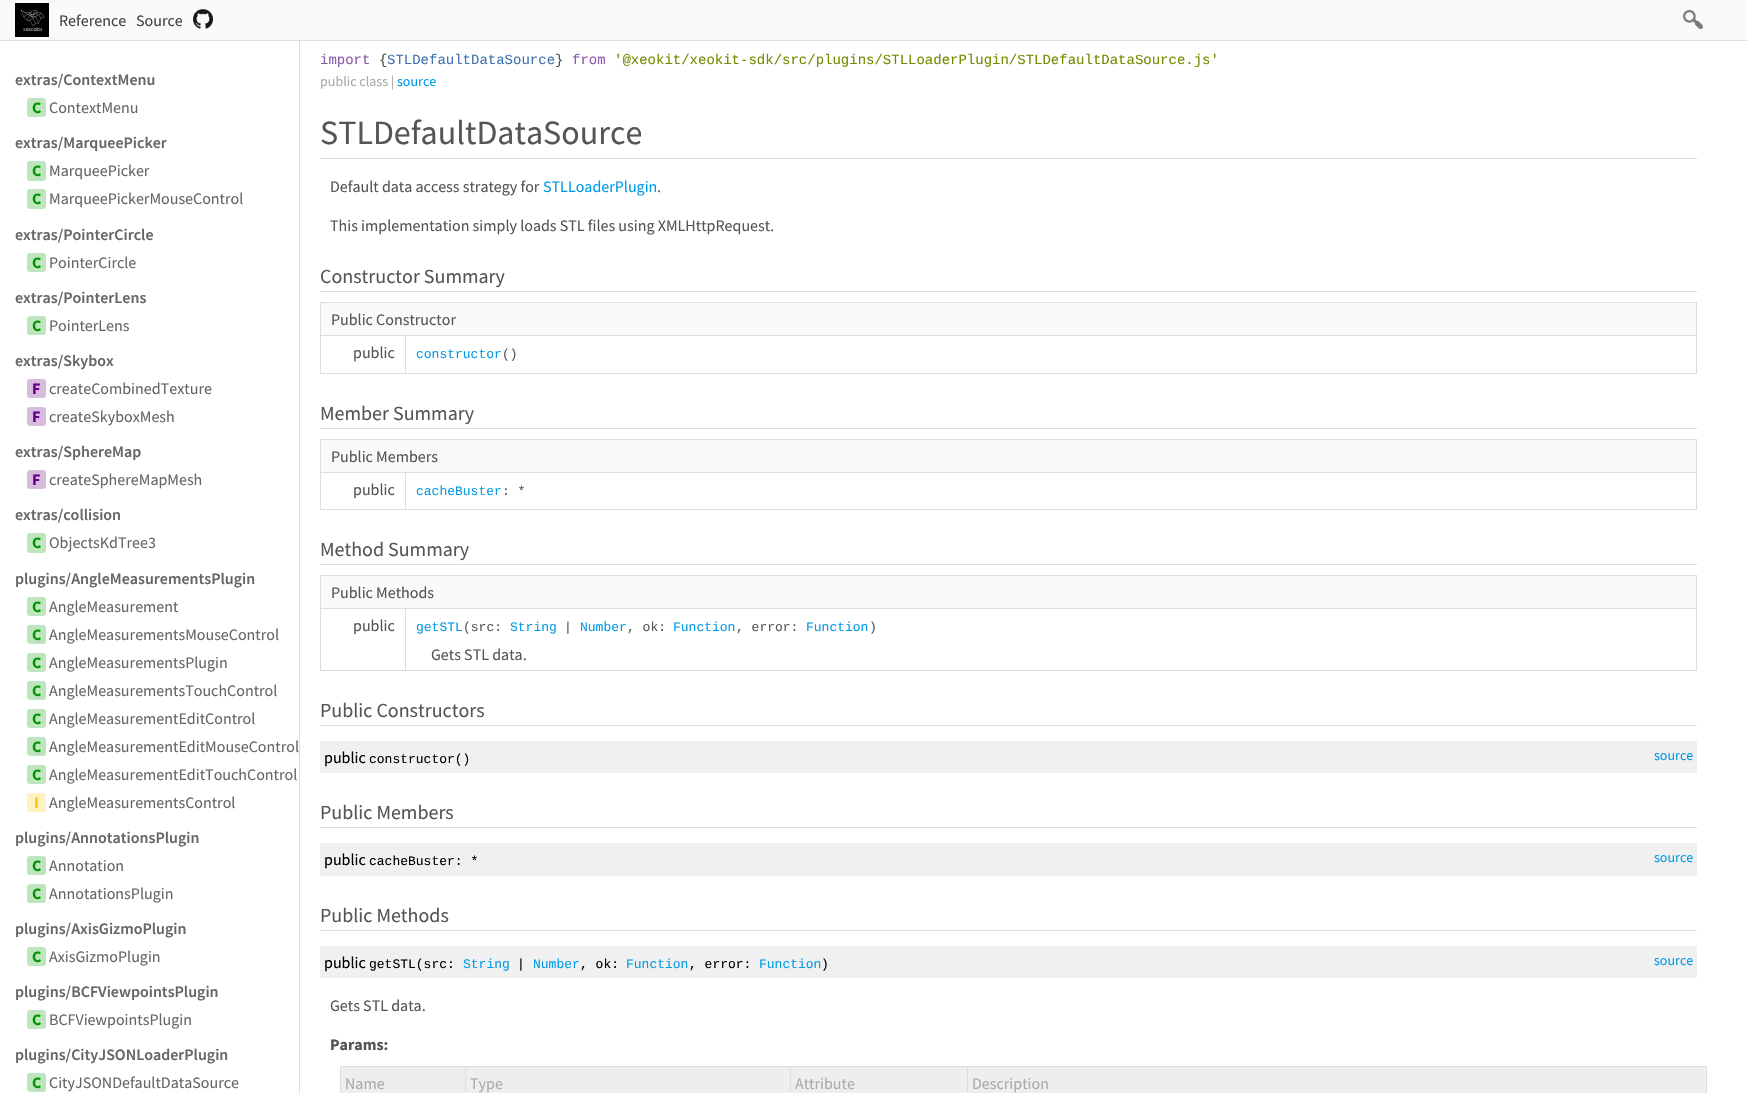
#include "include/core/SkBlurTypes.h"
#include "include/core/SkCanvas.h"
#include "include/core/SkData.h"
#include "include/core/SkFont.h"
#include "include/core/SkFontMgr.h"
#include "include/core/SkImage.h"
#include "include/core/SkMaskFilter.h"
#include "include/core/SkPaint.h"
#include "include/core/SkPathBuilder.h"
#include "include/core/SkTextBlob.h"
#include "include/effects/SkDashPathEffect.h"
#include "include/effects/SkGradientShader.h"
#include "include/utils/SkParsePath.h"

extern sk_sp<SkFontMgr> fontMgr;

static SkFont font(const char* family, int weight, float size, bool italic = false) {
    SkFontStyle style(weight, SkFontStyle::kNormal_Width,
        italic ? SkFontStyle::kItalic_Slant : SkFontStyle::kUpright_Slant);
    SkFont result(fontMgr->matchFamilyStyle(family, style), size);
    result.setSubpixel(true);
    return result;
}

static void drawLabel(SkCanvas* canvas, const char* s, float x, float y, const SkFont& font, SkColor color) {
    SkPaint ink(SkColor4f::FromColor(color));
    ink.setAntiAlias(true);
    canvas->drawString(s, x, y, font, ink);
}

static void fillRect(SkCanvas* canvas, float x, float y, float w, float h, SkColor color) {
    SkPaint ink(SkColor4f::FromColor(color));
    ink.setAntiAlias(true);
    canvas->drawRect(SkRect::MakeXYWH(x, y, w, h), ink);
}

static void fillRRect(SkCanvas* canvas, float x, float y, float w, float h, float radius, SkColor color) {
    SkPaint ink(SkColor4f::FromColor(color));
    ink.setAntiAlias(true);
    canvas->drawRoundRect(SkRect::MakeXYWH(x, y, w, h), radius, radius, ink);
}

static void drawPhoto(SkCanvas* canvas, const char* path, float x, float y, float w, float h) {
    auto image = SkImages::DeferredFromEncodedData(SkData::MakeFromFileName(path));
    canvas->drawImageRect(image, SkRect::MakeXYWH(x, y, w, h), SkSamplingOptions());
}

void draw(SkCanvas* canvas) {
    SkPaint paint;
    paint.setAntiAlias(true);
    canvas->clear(0xFFFFFFFF);
    fillRect(canvas, 0, 0, 1747, 40, 0xFFFAFAFA);
    fillRect(canvas, 0, 40, 1747, 1, 0xFFDDDDDD);
    drawPhoto(canvas, "assets/img1.png", 15, 3, 34, 34);
    SkFont font1 = font("Source Sans Pro", 400, 16);
    drawLabel(canvas, "Reference", 59, 26, font1, 0xFF444444);
    drawLabel(canvas, "Source", 136, 26, font1, 0xFF444444);
    drawPhoto(canvas, "assets/img2.png", 193, 9, 20, 20);
    drawPhoto(canvas, "assets/img3.png", 1683, 10, 20, 19);
    fillRect(canvas, 299, 41, 1, 1052, 0xFFDDDDDD);
    SkFont font2 = font("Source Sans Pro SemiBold", 600, 16);
    drawLabel(canvas, "extras/ContextMenu", 15, 85, font2, 0xFF666666);
    fillRRect(canvas, 27, 98, 19, 19, 3, 0xFFBFE5BF);
    SkFont font3 = font("Source Sans Pro", 700, 16);
    drawLabel(canvas, "C", 32, 113, font3, 0xFF009800);
    drawLabel(canvas, "ContextMenu", 49, 113, font1, 0xFF666666);
    drawLabel(canvas, "extras/MarqueePicker", 15, 148, font2, 0xFF666666);
    fillRRect(canvas, 27, 161, 19, 20, 3, 0xFFBFE5BF);
    drawLabel(canvas, "C", 32, 176, font3, 0xFF009800);
    drawLabel(canvas, "MarqueePicker", 49, 176, font1, 0xFF666666);
    fillRRect(canvas, 27, 189, 19, 20, 3, 0xFFBFE5BF);
    drawLabel(canvas, "C", 32, 204, font3, 0xFF009800);
    drawLabel(canvas, "MarqueePickerMouseControl", 49, 204, font1, 0xFF666666);
    drawLabel(canvas, "extras/PointerCircle", 15, 240, font2, 0xFF666666);
    fillRRect(canvas, 27, 253, 19, 19, 3, 0xFFBFE5BF);
    drawLabel(canvas, "C", 32, 268, font3, 0xFF009800);
    drawLabel(canvas, "PointerCircle", 49, 268, font1, 0xFF666666);
    drawLabel(canvas, "extras/PointerLens", 15, 303, font2, 0xFF666666);
    fillRRect(canvas, 27, 316, 19, 19, 3, 0xFFBFE5BF);
    drawLabel(canvas, "C", 32, 331, font3, 0xFF009800);
    drawLabel(canvas, "PointerLens", 49, 331, font1, 0xFF666666);
    drawLabel(canvas, "extras/Skybox", 15, 366, font2, 0xFF666666);
    fillRRect(canvas, 27, 379, 19, 19, 3, 0xFFD6BDDE);
    drawLabel(canvas, "F", 32, 394, font3, 0xFF6B0090);
    drawLabel(canvas, "createCombinedTexture", 49, 394, font1, 0xFF666666);
    fillRRect(canvas, 27, 407, 19, 19, 3, 0xFFD6BDDE);
    drawLabel(canvas, "F", 32, 422, font3, 0xFF6B0090);
    drawLabel(canvas, "createSkyboxMesh", 49, 422, font1, 0xFF666666);
    drawLabel(canvas, "extras/SphereMap", 15, 457, font2, 0xFF666666);
    fillRRect(canvas, 27, 470, 19, 19, 3, 0xFFD6BDDE);
    drawLabel(canvas, "F", 32, 485, font3, 0xFF6B0090);
    drawLabel(canvas, "createSphereMapMesh", 49, 485, font1, 0xFF666666);
    drawLabel(canvas, "extras/collision", 15, 520, font2, 0xFF666666);
    fillRRect(canvas, 27, 533, 19, 20, 3, 0xFFBFE5BF);
    drawLabel(canvas, "C", 32, 548, font3, 0xFF009800);
    drawLabel(canvas, "ObjectsKdTree3", 49, 548, font1, 0xFF666666);
    drawLabel(canvas, "plugins/AngleMeasurementsPlugin", 15, 584, font2, 0xFF666666);
    fillRRect(canvas, 27, 597, 19, 19, 3, 0xFFBFE5BF);
    drawLabel(canvas, "C", 32, 612, font3, 0xFF009800);
    drawLabel(canvas, "AngleMeasurement", 49, 612, font1, 0xFF666666);
    fillRRect(canvas, 27, 625, 19, 19, 3, 0xFFBFE5BF);
    drawLabel(canvas, "C", 32, 640, font3, 0xFF009800);
    drawLabel(canvas, "AngleMeasurementsMouseControl", 49, 640, font1, 0xFF666666);
    fillRRect(canvas, 27, 653, 19, 19, 3, 0xFFBFE5BF);
    drawLabel(canvas, "C", 32, 668, font3, 0xFF009800);
    drawLabel(canvas, "AngleMeasurementsPlugin", 49, 668, font1, 0xFF666666);
    fillRRect(canvas, 27, 681, 19, 19, 3, 0xFFBFE5BF);
    drawLabel(canvas, "C", 32, 696, font3, 0xFF009800);
    drawLabel(canvas, "AngleMeasurementsTouchControl", 49, 696, font1, 0xFF666666);
    fillRRect(canvas, 27, 709, 19, 19, 3, 0xFFBFE5BF);
    drawLabel(canvas, "C", 32, 724, font3, 0xFF009800);
    drawLabel(canvas, "AngleMeasurementEditControl", 49, 724, font1, 0xFF666666);
    fillRRect(canvas, 27, 737, 19, 19, 3, 0xFFBFE5BF);
    drawLabel(canvas, "C", 32, 752, font3, 0xFF009800);
    drawLabel(canvas, "AngleMeasurementEditMouseControl", 49, 752, font1, 0xFF666666);
    fillRRect(canvas, 27, 765, 19, 19, 3, 0xFFBFE5BF);
    drawLabel(canvas, "C", 32, 780, font3, 0xFF009800);
    drawLabel(canvas, "AngleMeasurementEditTouchControl", 49, 780, font1, 0xFF666666);
    fillRRect(canvas, 27, 793, 19, 19, 3, 0xFFFEF2C0);
    drawLabel(canvas, "I", 34, 808, font3, 0xFFFBCA04);
    drawLabel(canvas, "AngleMeasurementsControl", 49, 808, font1, 0xFF666666);
    drawLabel(canvas, "plugins/AnnotationsPlugin", 15, 843, font2, 0xFF666666);
    fillRRect(canvas, 27, 856, 19, 19, 3, 0xFFBFE5BF);
    drawLabel(canvas, "C", 32, 871, font3, 0xFF009800);
    drawLabel(canvas, "Annotation", 49, 871, font1, 0xFF666666);
    fillRRect(canvas, 27, 884, 19, 19, 3, 0xFFBFE5BF);
    drawLabel(canvas, "C", 32, 899, font3, 0xFF009800);
    drawLabel(canvas, "AnnotationsPlugin", 49, 899, font1, 0xFF666666);
    drawLabel(canvas, "plugins/AxisGizmoPlugin", 15, 934, font2, 0xFF666666);
    fillRRect(canvas, 27, 947, 19, 19, 3, 0xFFBFE5BF);
    drawLabel(canvas, "C", 32, 962, font3, 0xFF009800);
    drawLabel(canvas, "AxisGizmoPlugin", 49, 962, font1, 0xFF666666);
    drawLabel(canvas, "plugins/BCFViewpointsPlugin", 15, 997, font2, 0xFF666666);
    fillRRect(canvas, 27, 1010, 19, 19, 3, 0xFFBFE5BF);
    drawLabel(canvas, "C", 32, 1025, font3, 0xFF009800);
    drawLabel(canvas, "BCFViewpointsPlugin", 49, 1025, font1, 0xFF666666);
    drawLabel(canvas, "plugins/CityJSONLoaderPlugin", 15, 1060, font2, 0xFF666666);
    fillRRect(canvas, 27, 1073, 19, 19, 3, 0xFFBFE5BF);
    drawLabel(canvas, "C", 32, 1088, font3, 0xFF009800);
    drawLabel(canvas, "CityJSONDefaultDataSource", 49, 1088, font1, 0xFF666666);
    SkFont font4 = font("Liberation Mono", 400, 14);
    drawLabel(canvas, "import", 320, 64, font4, 0xFF8959A8);
    drawLabel(canvas, "{", 379, 64, font4, 0xFF4D4D4C);
    drawLabel(canvas, "STLDefaultDataSource", 387, 64, font4, 0xFF4271AE);
    drawLabel(canvas, "}", 555, 64, font4, 0xFF4D4D4C);
    drawLabel(canvas, "from", 572, 64, font4, 0xFF8959A8);
    drawLabel(canvas, "'@xeokit/xeokit-sdk/src/plugins/STLLoaderPlugin/STLDefaultDataSource.js'", 614, 64, font4, 0xFF718C00);
    SkFont font5 = font("Source Sans Pro", 400, 14);
    drawLabel(canvas, "public class |", 320, 86, font5, 0xFFAAAAAA);
    drawLabel(canvas, "source", 397, 86, font5, 0xFF039BE5);
    fillRect(canvas, 320, 158, 1377, 1, 0xFFDDDDDD);
    SkFont font6 = font("Source Sans Pro", 400, 34);
    drawLabel(canvas, "STLDefaultDataSource", 320, 144, font6, 0xFF555555);
    drawLabel(canvas, "Default data access strategy for", 330, 192, font1, 0xFF555555);
    drawLabel(canvas, "STLLoaderPlugin", 543, 192, font1, 0xFF039BE5);
    drawLabel(canvas, ".", 657, 192, font1, 0xFF555555);
    drawLabel(canvas, "This implementation simply loads STL files using XMLHttpRequest.", 330, 231, font1, 0xFF555555);
    fillRect(canvas, 320, 291, 1377, 1, 0xFFDDDDDD);
    SkFont font7 = font("Source Sans Pro", 400, 20);
    drawLabel(canvas, "Constructor Summary", 320, 283, font7, 0xFF555555);
    fillRect(canvas, 321, 303, 1375, 32, 0xFFFAFAFA);
    fillRect(canvas, 320, 302, 1377, 1, 0xFFDDDDDD);
    fillRect(canvas, 405, 335, 1292, 1, 0xFFDDDDDD);
    fillRect(canvas, 1696, 335, 1, 39, 0xFFDDDDDD);
    fillRect(canvas, 1696, 302, 1, 34, 0xFFDDDDDD);
    fillRect(canvas, 405, 373, 1292, 1, 0xFFDDDDDD);
    fillRect(canvas, 405, 335, 1, 39, 0xFFDDDDDD);
    fillRect(canvas, 320, 335, 86, 1, 0xFFDDDDDD);
    fillRect(canvas, 320, 373, 86, 1, 0xFFDDDDDD);
    fillRect(canvas, 320, 335, 1, 39, 0xFFDDDDDD);
    fillRect(canvas, 320, 302, 1, 34, 0xFFDDDDDD);
    drawLabel(canvas, "Public Constructor", 331, 325, font1, 0xFF555555);
    drawLabel(canvas, "public", 353, 358, font1, 0xFF555555);
    SkFont font8 = font("Liberation Mono", 400, 13);
    drawLabel(canvas, "constructor", 416, 358, font8, 0xFF039BE5);
    drawLabel(canvas, "()", 502, 358, font8, 0xFF555555);
    fillRect(canvas, 320, 428, 1377, 1, 0xFFDDDDDD);
    drawLabel(canvas, "Member Summary", 320, 420, font7, 0xFF555555);
    fillRect(canvas, 321, 440, 1375, 32, 0xFFFAFAFA);
    fillRect(canvas, 320, 439, 1377, 1, 0xFFDDDDDD);
    fillRect(canvas, 405, 472, 1292, 1, 0xFFDDDDDD);
    fillRect(canvas, 1696, 472, 1, 38, 0xFFDDDDDD);
    fillRect(canvas, 1696, 439, 1, 34, 0xFFDDDDDD);
    fillRect(canvas, 405, 509, 1292, 1, 0xFFDDDDDD);
    fillRect(canvas, 405, 472, 1, 38, 0xFFDDDDDD);
    fillRect(canvas, 320, 472, 86, 1, 0xFFDDDDDD);
    fillRect(canvas, 320, 509, 86, 1, 0xFFDDDDDD);
    fillRect(canvas, 320, 472, 1, 38, 0xFFDDDDDD);
    fillRect(canvas, 320, 439, 1, 34, 0xFFDDDDDD);
    drawLabel(canvas, "Public Members", 331, 462, font1, 0xFF555555);
    drawLabel(canvas, "public", 353, 495, font1, 0xFF555555);
    drawLabel(canvas, "cacheBuster", 416, 495, font8, 0xFF039BE5);
    drawLabel(canvas, ": *", 502, 495, font8, 0xFF555555);
    fillRect(canvas, 320, 564, 1377, 1, 0xFFDDDDDD);
    drawLabel(canvas, "Method Summary", 320, 556, font7, 0xFF555555);
    fillRect(canvas, 321, 576, 1375, 32, 0xFFFAFAFA);
    fillRect(canvas, 320, 575, 1377, 1, 0xFFDDDDDD);
    fillRect(canvas, 405, 608, 1292, 1, 0xFFDDDDDD);
    fillRect(canvas, 1696, 608, 1, 63, 0xFFDDDDDD);
    fillRect(canvas, 1696, 575, 1, 34, 0xFFDDDDDD);
    fillRect(canvas, 405, 670, 1292, 1, 0xFFDDDDDD);
    fillRect(canvas, 405, 608, 1, 63, 0xFFDDDDDD);
    fillRect(canvas, 320, 608, 86, 1, 0xFFDDDDDD);
    fillRect(canvas, 320, 670, 86, 1, 0xFFDDDDDD);
    fillRect(canvas, 320, 608, 1, 63, 0xFFDDDDDD);
    fillRect(canvas, 320, 575, 1, 34, 0xFFDDDDDD);
    drawLabel(canvas, "Public Methods", 331, 598, font1, 0xFF555555);
    drawLabel(canvas, "public", 353, 631, font1, 0xFF555555);
    drawLabel(canvas, "getSTL", 416, 631, font8, 0xFF039BE5);
    drawLabel(canvas, "(src:", 463, 631, font8, 0xFF555555);
    drawLabel(canvas, "String", 510, 631, font8, 0xFF039BE5);
    drawLabel(canvas, "|", 564, 631, font8, 0xFF555555);
    drawLabel(canvas, "Number", 580, 631, font8, 0xFF039BE5);
    drawLabel(canvas, ", ok:", 627, 631, font8, 0xFF555555);
    drawLabel(canvas, "Function", 673, 631, font8, 0xFF039BE5);
    drawLabel(canvas, ", error:", 736, 631, font8, 0xFF555555);
    drawLabel(canvas, "Function", 806, 631, font8, 0xFF039BE5);
    drawLabel(canvas, ")", 869, 631, font8, 0xFF555555);
    drawLabel(canvas, "Gets STL data.", 431, 660, font1, 0xFF555555);
    fillRect(canvas, 320, 725, 1377, 1, 0xFFDDDDDD);
    drawLabel(canvas, "Public Constructors", 320, 717, font7, 0xFF555555);
    fillRect(canvas, 320, 741, 1377, 32, 0xFFF0F0F0);
    drawLabel(canvas, "public", 324, 763, font1, 0xFF000000);
    drawLabel(canvas, "constructor()", 369, 763, font8, 0xFF000000);
    drawLabel(canvas, "source", 1654, 760, font5, 0xFF039BE5);
    fillRect(canvas, 320, 827, 1377, 1, 0xFFDDDDDD);
    drawLabel(canvas, "Public Members", 320, 819, font7, 0xFF555555);
    fillRect(canvas, 320, 843, 1377, 33, 0xFFF0F0F0);
    drawLabel(canvas, "public", 324, 865, font1, 0xFF000000);
    drawLabel(canvas, "cacheBuster: *", 369, 865, font8, 0xFF000000);
    drawLabel(canvas, "source", 1654, 862, font5, 0xFF039BE5);
    fillRect(canvas, 320, 930, 1377, 1, 0xFFDDDDDD);
    drawLabel(canvas, "Public Methods", 320, 922, font7, 0xFF555555);
    fillRect(canvas, 320, 946, 1377, 32, 0xFFF0F0F0);
    drawLabel(canvas, "public", 324, 968, font1, 0xFF000000);
    drawLabel(canvas, "getSTL(src:", 369, 968, font8, 0xFF000000);
    drawLabel(canvas, "String", 463, 968, font8, 0xFF039BE5);
    drawLabel(canvas, "|", 517, 968, font8, 0xFF000000);
    drawLabel(canvas, "Number", 533, 968, font8, 0xFF039BE5);
    drawLabel(canvas, ", ok:", 580, 968, font8, 0xFF000000);
    drawLabel(canvas, "Function", 626, 968, font8, 0xFF039BE5);
    drawLabel(canvas, ", error:", 689, 968, font8, 0xFF000000);
    drawLabel(canvas, "Function", 759, 968, font8, 0xFF039BE5);
    drawLabel(canvas, ")", 821, 968, font8, 0xFF000000);
    drawLabel(canvas, "source", 1654, 965, font5, 0xFF039BE5);
    drawLabel(canvas, "Gets STL data.", 330, 1011, font1, 0xFF555555);
    drawLabel(canvas, "Params:", 330, 1050, font3, 0xFF555555);
    fillRect(canvas, 341, 1067, 1365, 26, 0xFFEEEEEE);
    fillRect(canvas, 967, 1066, 740, 1, 0xFFDDDDDD);
    fillRect(canvas, 967, 1066, 1, 27, 0xFFDDDDDD);
    fillRect(canvas, 790, 1066, 178, 1, 0xFFDDDDDD);
    fillRect(canvas, 790, 1066, 1, 27, 0xFFDDDDDD);
    fillRect(canvas, 465, 1066, 326, 1, 0xFFDDDDDD);
    fillRect(canvas, 465, 1066, 1, 27, 0xFFDDDDDD);
    fillRect(canvas, 340, 1066, 126, 1, 0xFFDDDDDD);
    fillRect(canvas, 340, 1066, 1, 27, 0xFFDDDDDD);
    drawLabel(canvas, "Name", 345, 1089, font1, 0xFFAAAAAA);
    drawLabel(canvas, "Type", 470, 1089, font1, 0xFFAAAAAA);
    drawLabel(canvas, "Attribute", 795, 1089, font1, 0xFFAAAAAA);
    fillRect(canvas, 1706, 1066, 1, 27, 0xFFDDDDDD);
    drawLabel(canvas, "Description", 972, 1089, font1, 0xFFAAAAAA);
}
